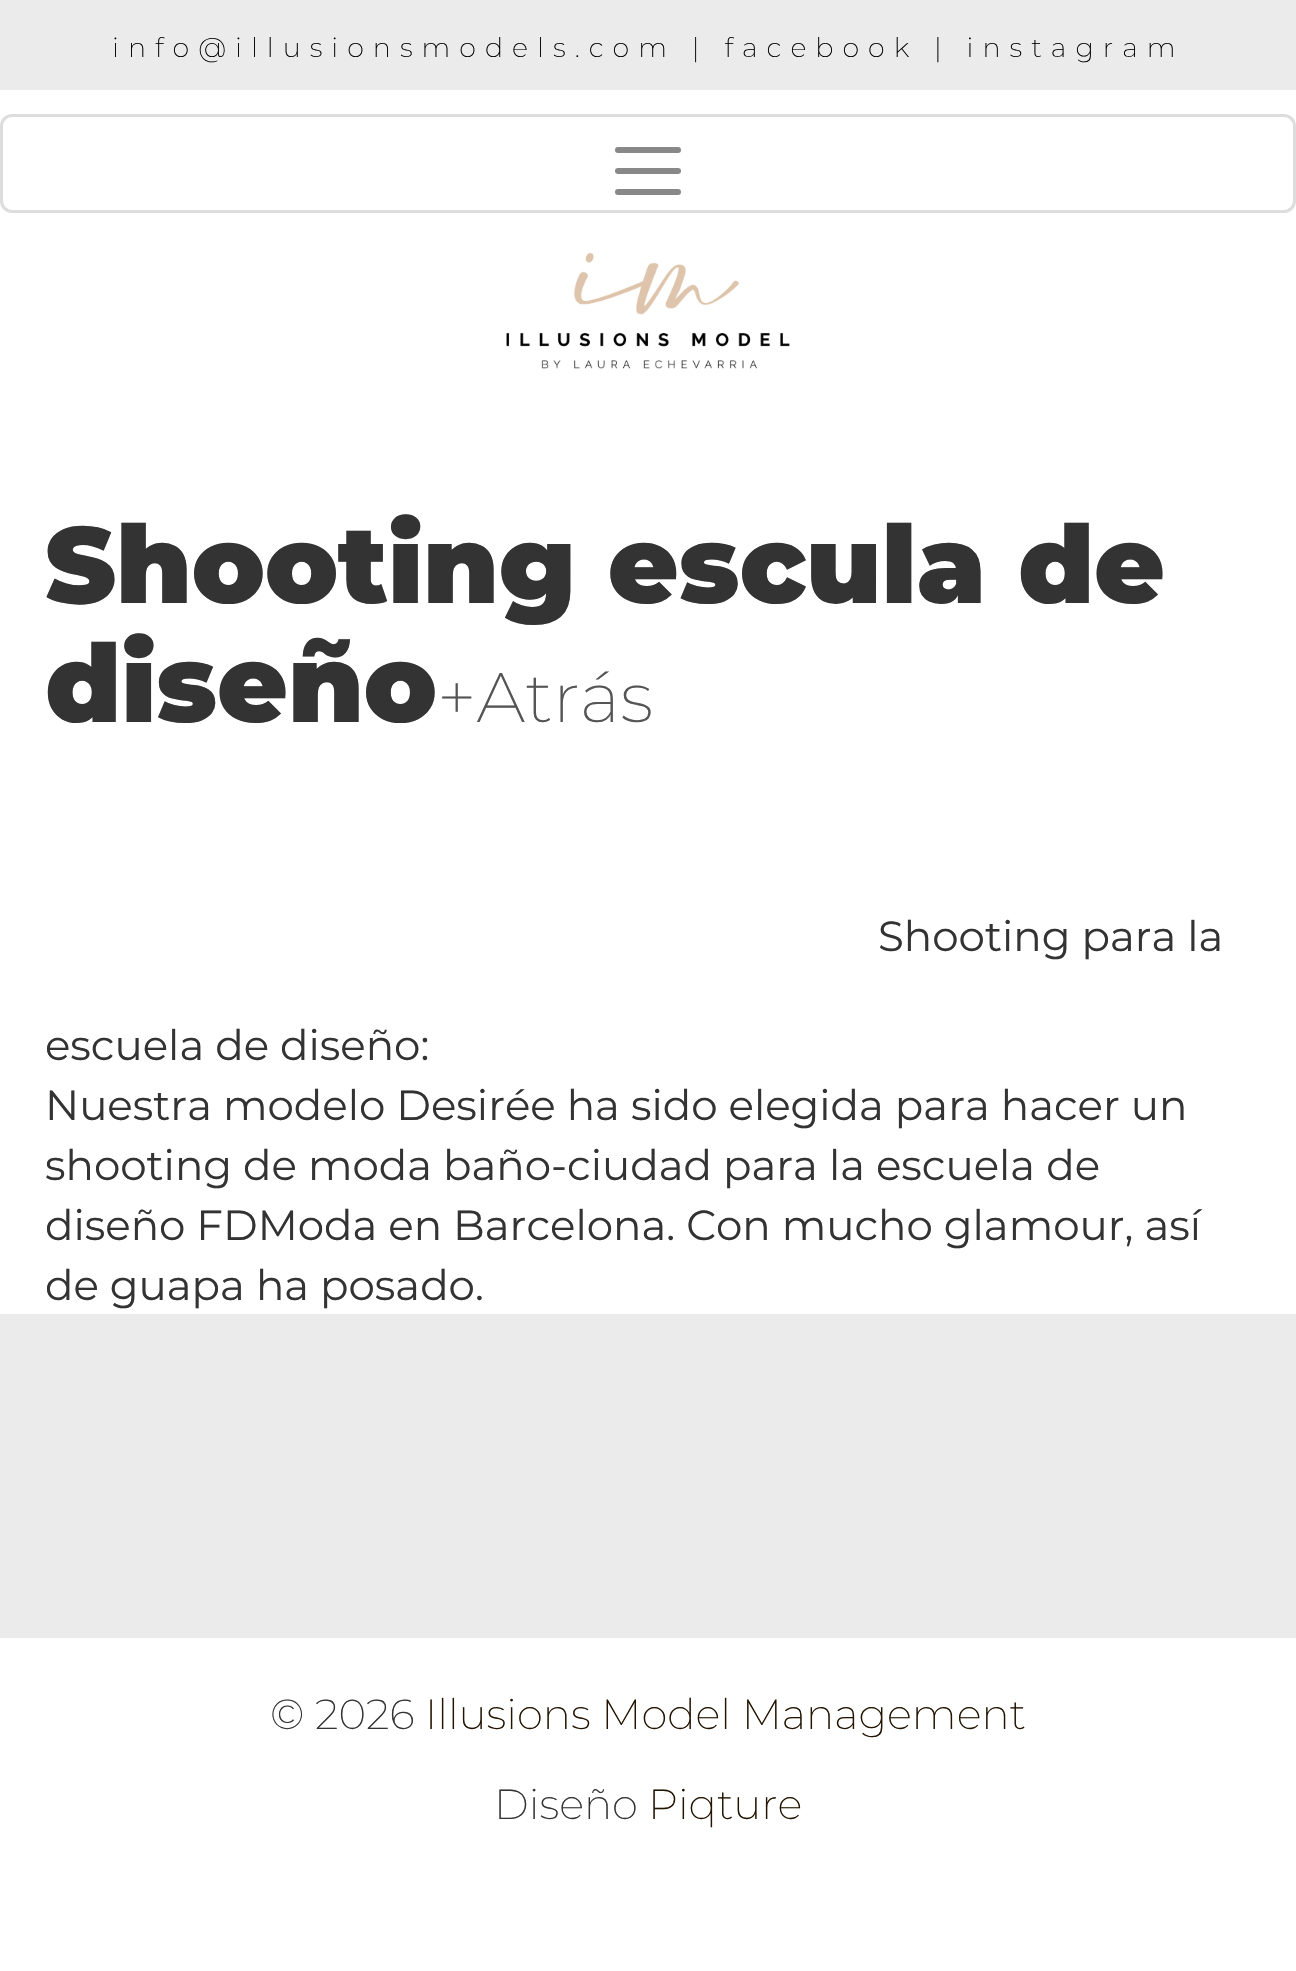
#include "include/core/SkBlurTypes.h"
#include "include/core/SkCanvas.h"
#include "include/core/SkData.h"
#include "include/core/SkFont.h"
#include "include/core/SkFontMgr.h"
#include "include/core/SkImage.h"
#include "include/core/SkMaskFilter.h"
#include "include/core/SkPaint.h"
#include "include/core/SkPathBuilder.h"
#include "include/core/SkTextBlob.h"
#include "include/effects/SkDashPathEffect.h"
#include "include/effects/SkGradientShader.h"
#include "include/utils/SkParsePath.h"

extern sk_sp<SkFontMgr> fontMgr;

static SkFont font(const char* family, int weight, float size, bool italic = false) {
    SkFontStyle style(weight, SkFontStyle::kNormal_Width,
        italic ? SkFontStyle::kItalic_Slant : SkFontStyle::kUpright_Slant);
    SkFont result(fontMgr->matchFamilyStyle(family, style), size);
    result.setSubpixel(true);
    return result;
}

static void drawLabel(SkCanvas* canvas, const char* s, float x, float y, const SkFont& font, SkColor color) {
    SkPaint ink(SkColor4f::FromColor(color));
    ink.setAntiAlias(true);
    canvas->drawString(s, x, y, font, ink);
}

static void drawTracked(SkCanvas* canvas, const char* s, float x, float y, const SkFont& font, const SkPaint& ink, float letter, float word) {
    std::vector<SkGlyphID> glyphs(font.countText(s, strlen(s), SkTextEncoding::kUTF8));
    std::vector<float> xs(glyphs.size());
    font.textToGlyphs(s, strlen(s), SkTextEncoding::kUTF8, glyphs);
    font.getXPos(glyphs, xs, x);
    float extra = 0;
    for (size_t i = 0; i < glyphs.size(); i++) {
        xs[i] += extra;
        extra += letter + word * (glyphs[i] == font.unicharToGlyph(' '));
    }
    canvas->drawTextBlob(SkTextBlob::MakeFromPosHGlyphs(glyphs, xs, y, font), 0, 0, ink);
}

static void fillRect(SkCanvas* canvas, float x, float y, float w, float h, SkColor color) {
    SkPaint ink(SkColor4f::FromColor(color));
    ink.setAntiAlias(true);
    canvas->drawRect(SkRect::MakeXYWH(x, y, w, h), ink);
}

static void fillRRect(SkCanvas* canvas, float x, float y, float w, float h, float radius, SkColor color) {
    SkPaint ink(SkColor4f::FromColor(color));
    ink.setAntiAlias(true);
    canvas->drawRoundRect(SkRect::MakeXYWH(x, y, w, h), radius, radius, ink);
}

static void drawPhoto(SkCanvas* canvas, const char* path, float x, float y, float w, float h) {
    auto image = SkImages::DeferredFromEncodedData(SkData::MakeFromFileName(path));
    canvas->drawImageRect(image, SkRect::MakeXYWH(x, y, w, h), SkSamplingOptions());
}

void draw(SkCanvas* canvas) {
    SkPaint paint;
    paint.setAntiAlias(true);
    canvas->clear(0xFFFFFFFF);
    fillRect(canvas, 0, 0, 1296, 90, 0xFFEBEBEB);
    SkFont font1 = font("Montserrat", 200, 27);
    paint.setColor(0xFF000000);
    drawTracked(canvas, "info@illusionsmodels.com | facebook | instagram", 112, 57, font1, paint, 9, 0);
    paint.setStroke(true);
    paint.setStrokeWidth(3);
    paint.setColor(0xFFDDDDDD);
    canvas->drawRoundRect(SkRect::MakeXYWH(1.5f, 115.5f, 1293, 96), 10.5f, 10.5f, paint);
    fillRRect(canvas, 615, 147, 66, 6, 3, 0xFF888888);
    fillRRect(canvas, 615, 168, 66, 6, 3, 0xFF888888);
    fillRRect(canvas, 615, 189, 66, 6, 3, 0xFF888888);
    drawPhoto(canvas, "assets/img1.png", 506, 252, 284, 117);
    SkFont font2 = font("Montserrat", 900, 108);
    drawLabel(canvas, "Shooting escula de", 45, 603, font2, 0xFF333333);
    drawLabel(canvas, "diseño", 45, 722, font2, 0xFF333333);
    SkFont font3 = font("Montserrat", 200, 70);
    drawLabel(canvas, "+Atrás", 437, 722, font3, 0xFF555555);
    SkFont font4 = font("Montserrat", 400, 42);
    drawLabel(canvas, "Shooting para la", 878, 951, font4, 0xFF333333);
    drawLabel(canvas, "escuela de diseño:", 45, 1060, font4, 0xFF333333);
    drawLabel(canvas, "Nuestra modelo Desirée ha sido elegida para hacer un", 45, 1120, font4, 0xFF333333);
    drawLabel(canvas, "shooting de moda baño-ciudad para la escuela de", 45, 1180, font4, 0xFF333333);
    drawLabel(canvas, "diseño FDModa en Barcelona. Con mucho glamour, así", 45, 1240, font4, 0xFF333333);
    drawLabel(canvas, "de guapa ha posado.", 45, 1300, font4, 0xFF333333);
    fillRect(canvas, 0, 1314, 1296, 324, 0xFFEBEBEB);
    SkFont font5 = font("Montserrat", 200, 42);
    drawLabel(canvas, "© 2026", 270, 1729, font5, 0xFF333333);
    drawLabel(canvas, "Illusions Model Management", 425, 1729, font5, 0xFF231401);
    drawLabel(canvas, "Diseño", 494, 1819, font5, 0xFF333333);
    drawLabel(canvas, "Piqture", 648, 1819, font5, 0xFF231401);
}
